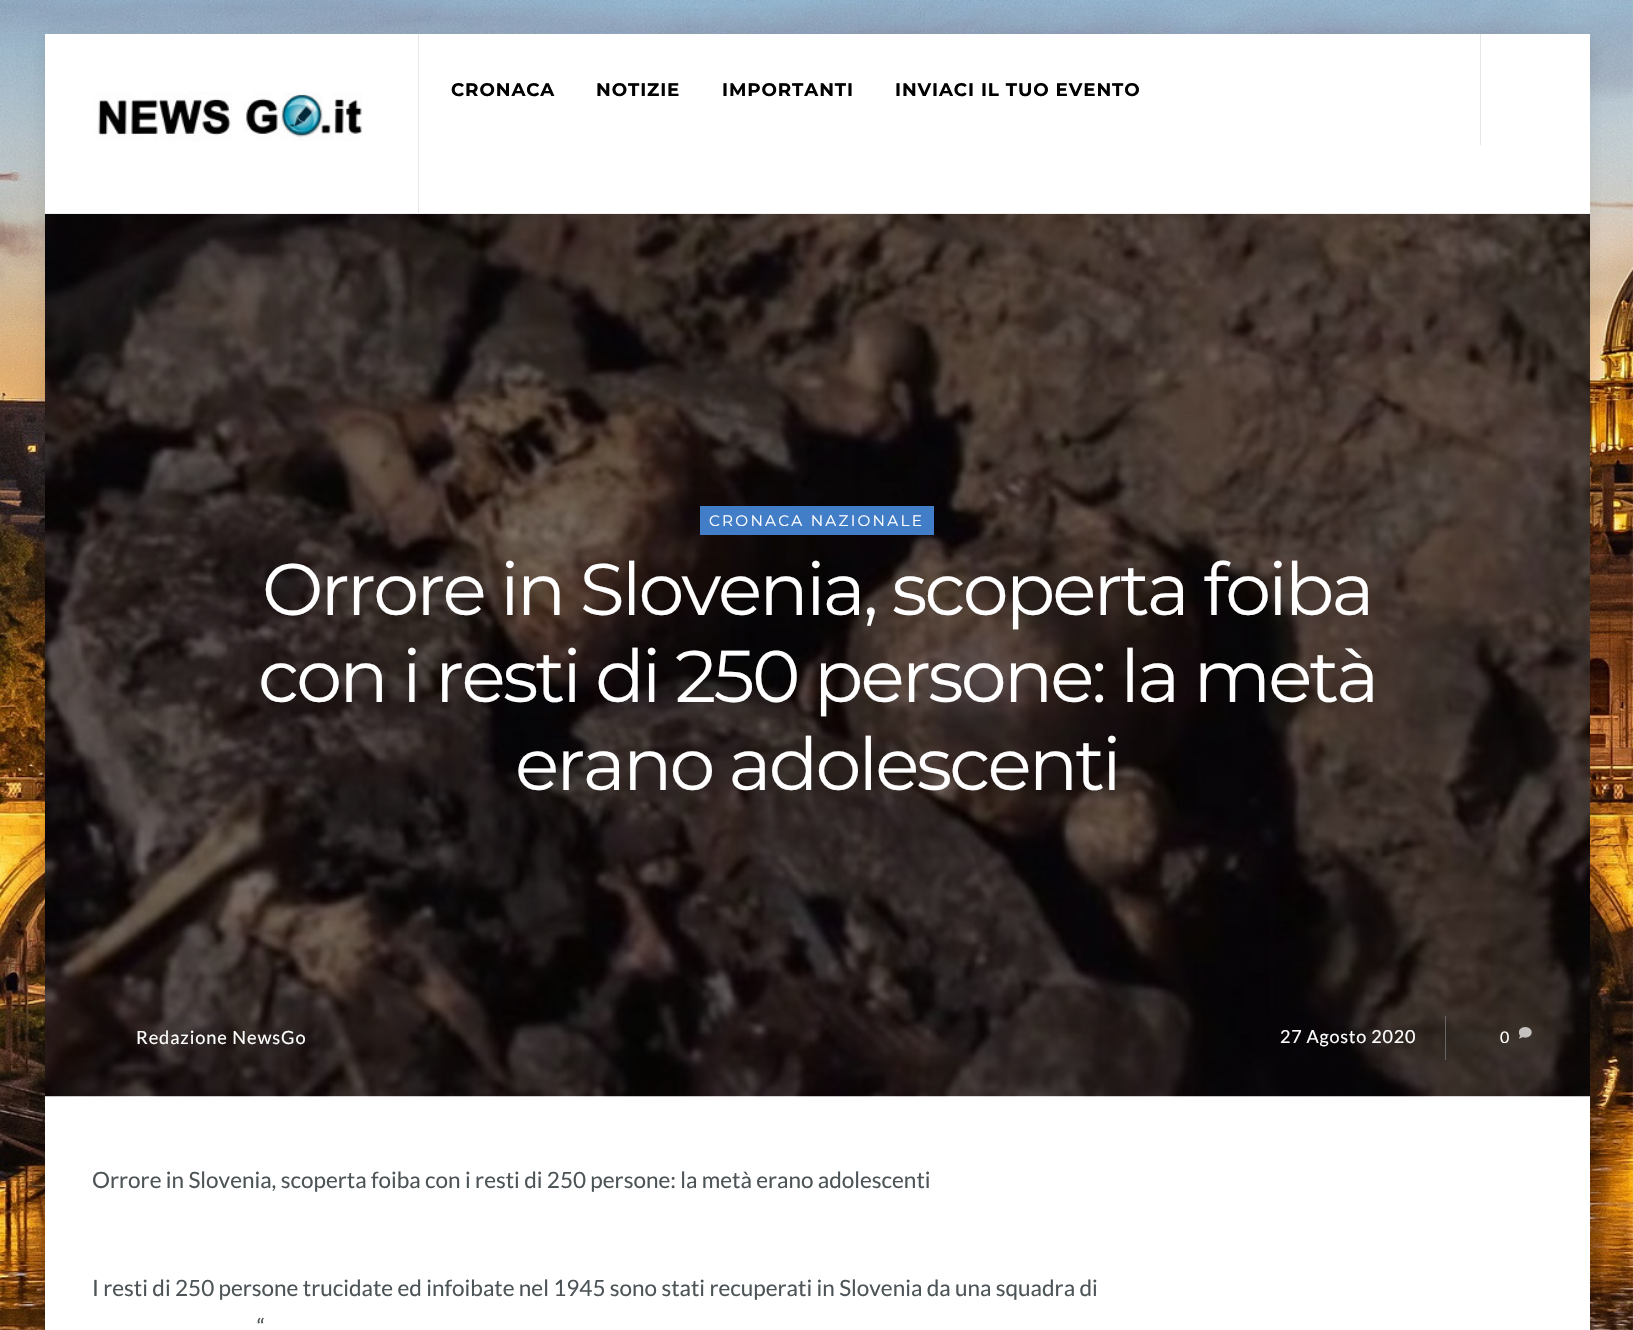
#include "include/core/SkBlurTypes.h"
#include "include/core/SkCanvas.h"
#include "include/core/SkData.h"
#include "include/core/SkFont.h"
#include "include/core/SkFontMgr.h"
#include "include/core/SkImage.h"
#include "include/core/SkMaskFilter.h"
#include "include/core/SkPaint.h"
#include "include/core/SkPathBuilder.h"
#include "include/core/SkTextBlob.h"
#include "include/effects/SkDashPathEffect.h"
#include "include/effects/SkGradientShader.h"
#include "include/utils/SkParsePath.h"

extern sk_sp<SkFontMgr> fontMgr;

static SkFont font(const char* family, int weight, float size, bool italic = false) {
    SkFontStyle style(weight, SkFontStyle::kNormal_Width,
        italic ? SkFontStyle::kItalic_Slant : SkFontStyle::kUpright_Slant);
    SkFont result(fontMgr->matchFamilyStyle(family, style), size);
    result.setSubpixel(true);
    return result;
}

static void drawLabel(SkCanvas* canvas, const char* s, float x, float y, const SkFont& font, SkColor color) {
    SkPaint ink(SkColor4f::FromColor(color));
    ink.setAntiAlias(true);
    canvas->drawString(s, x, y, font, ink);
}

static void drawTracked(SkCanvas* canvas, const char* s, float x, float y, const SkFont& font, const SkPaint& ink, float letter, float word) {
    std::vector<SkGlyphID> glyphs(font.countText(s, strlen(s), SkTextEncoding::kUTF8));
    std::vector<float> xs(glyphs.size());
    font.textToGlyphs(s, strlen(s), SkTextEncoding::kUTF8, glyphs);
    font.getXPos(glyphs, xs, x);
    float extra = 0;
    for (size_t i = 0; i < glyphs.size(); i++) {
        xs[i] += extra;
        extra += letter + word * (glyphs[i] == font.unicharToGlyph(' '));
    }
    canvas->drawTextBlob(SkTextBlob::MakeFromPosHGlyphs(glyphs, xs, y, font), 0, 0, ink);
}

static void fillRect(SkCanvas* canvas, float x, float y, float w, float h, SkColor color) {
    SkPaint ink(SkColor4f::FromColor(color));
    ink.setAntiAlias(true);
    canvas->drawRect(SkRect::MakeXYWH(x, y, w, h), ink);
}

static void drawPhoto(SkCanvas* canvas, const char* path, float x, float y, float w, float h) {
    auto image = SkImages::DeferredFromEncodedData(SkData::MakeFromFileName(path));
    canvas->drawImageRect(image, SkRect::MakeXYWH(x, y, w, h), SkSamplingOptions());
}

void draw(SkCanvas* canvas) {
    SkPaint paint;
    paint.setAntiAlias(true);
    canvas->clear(0xFFFFFFFF);
    drawPhoto(canvas, "assets/img1.png", 0, 0, 1633, 1330);
    paint.setColor(0x1A000000);
    paint.setMaskFilter(SkMaskFilter::MakeBlur(kNormal_SkBlurStyle, 10));
    canvas->drawRect(SkRect::MakeXYWH(45, 38, 1545, 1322), paint);
    paint.setMaskFilter(nullptr);
    fillRect(canvas, 45, 1096, 1545, 234, 0xFFFFFFFF);
    fillRect(canvas, 45, 34, 1545, 179, 0xFFFFFFFF);
    fillRect(canvas, 45, 213, 1545, 1, 0xFFF2F2F2);
    fillRect(canvas, 418, 34, 1, 179, 0xFFE6E6E6);
    drawPhoto(canvas, "assets/img2.png", 94, 91, 269, 50);
    SkFont font1 = font("Montserrat", 700, 18.25f);
    paint.setColor(0xFF000000);
    drawTracked(canvas, "CRONACA", 451, 96, font1, paint, 0.9f, 0);
    drawTracked(canvas, "NOTIZIE", 596, 96, font1, paint, 0.9f, 0);
    drawTracked(canvas, "IMPORTANTI", 722, 96, font1, paint, 0.9f, 0);
    drawTracked(canvas, "INVIACI IL TUO EVENTO", 895, 96, font1, paint, 0.9f, 0);
    fillRect(canvas, 1480, 34, 1, 111, 0xFFE6E6E6);
    drawPhoto(canvas, "assets/img3.png", 45, 214, 1545, 883);
    fillRect(canvas, 700, 506, 234, 29, 0xFF427DC8);
    SkFont font2 = font("Montserrat", 400, 15.25f);
    paint.setColor(0xFFFFFFFF);
    drawTracked(canvas, "CRONACA NAZIONALE", 709, 526, font2, paint, 2.25f, 0);
    SkFont font3 = font("Lato", 400, 18.25f);
    drawTracked(canvas, "Redazione NewsGo", 136, 1044, font3, paint, 0.9f, 0);
    SkFont font4 = font("Lato", 400, 16);
    drawLabel(canvas, "0", 1500, 1043, font4, 0xFFFFFFFF);
    drawPhoto(canvas, "assets/img4.png", 1519, 1027, 13, 12);
    SkFont font5 = font("Montserrat", 400, 73.1f);
    drawTracked(canvas, "Orrore in Slovenia, scoperta foiba", 262, 615, font5, paint, -2.9f, 0);
    drawTracked(canvas, "con i resti di 250 persone: la metà", 258, 702, font5, paint, -2.9f, 0);
    drawTracked(canvas, "erano adolescenti", 515, 790, font5, paint, -2.9f, 0);
    SkFont font6 = font("Lato", 400, 18);
    drawTracked(canvas, "27 Agosto 2020", 1280, 1043, font6, paint, 0.75f, 0);
    fillRect(canvas, 1445, 1016, 1, 44, 0xFF666666);
    SkFont font7 = font("Lato", 400, 22.5f);
    drawLabel(canvas, "Orrore in Slovenia, scoperta foiba con i resti di 250 persone: la metà erano adolescenti", 92, 1188, font7, 0xFF4D5457);
    drawLabel(canvas, "I resti di 250 persone trucidate ed infoibate nel 1945 sono stati recuperati in Slovenia da una squadra di", 92, 1296, font7, 0xFF4D5457);
    drawLabel(canvas, "“", 257, 1335, font7, 0xFF4D5457);
}
